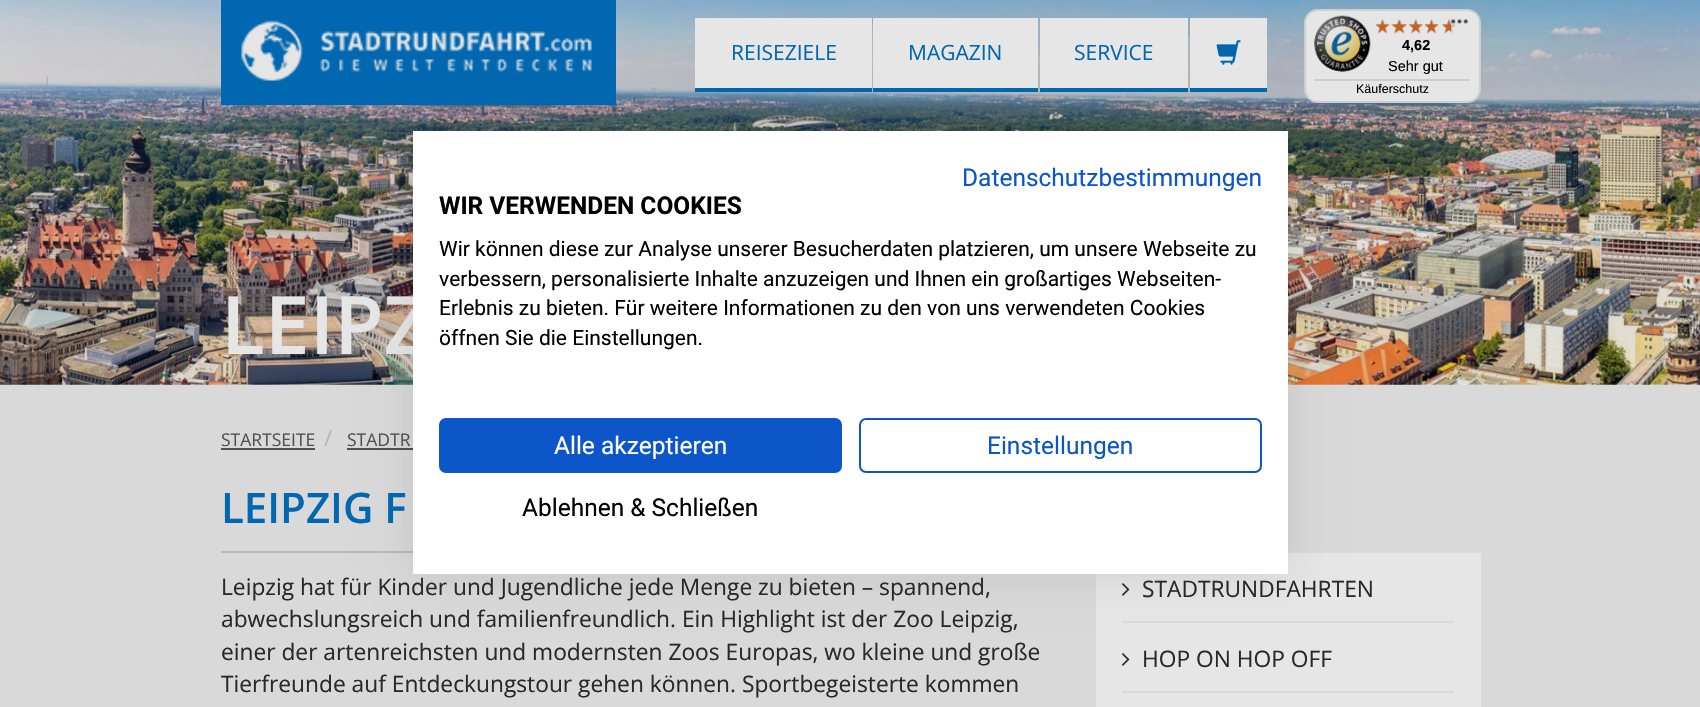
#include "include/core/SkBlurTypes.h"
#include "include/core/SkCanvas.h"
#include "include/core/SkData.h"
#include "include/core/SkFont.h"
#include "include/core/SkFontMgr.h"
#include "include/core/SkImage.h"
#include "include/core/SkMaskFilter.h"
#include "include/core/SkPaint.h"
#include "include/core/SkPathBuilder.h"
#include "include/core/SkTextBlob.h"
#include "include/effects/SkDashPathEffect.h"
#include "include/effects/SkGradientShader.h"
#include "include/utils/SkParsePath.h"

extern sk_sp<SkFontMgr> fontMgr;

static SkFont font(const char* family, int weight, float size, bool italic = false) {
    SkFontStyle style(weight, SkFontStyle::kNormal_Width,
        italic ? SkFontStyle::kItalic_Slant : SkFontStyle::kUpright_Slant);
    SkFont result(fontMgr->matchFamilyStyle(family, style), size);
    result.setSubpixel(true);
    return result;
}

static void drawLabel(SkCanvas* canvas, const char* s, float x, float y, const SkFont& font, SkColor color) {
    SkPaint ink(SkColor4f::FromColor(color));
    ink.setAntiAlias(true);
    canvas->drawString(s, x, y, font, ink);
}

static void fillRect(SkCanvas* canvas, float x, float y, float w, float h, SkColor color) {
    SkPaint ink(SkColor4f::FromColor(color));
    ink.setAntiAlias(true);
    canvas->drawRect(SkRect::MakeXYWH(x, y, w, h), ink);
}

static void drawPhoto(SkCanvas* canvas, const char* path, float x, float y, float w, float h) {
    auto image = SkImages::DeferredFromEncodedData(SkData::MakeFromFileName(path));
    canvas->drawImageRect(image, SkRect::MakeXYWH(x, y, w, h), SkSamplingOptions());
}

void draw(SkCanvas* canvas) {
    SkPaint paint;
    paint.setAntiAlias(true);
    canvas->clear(0xFFFFFFFF);
    drawPhoto(canvas, "assets/img15.png", 0, 0, 1700, 385);
    fillRect(canvas, 221, 0, 395, 105, 0xFF0067B0);
    drawPhoto(canvas, "assets/img1.png", 241, 20, 351, 61);
    fillRect(canvas, 695, 18, 177, 70, 0xFFE6E6E6);
    fillRect(canvas, 695, 88, 177, 4, 0xFF0067B0);
    SkFont font1 = font("Open Sans", 400, 21);
    drawLabel(canvas, "REISEZIELE", 731, 60, font1, 0xFF0067B0);
    fillRect(canvas, 873, 18, 165, 70, 0xFFE6E6E6);
    fillRect(canvas, 873, 88, 165, 4, 0xFF0067B0);
    drawLabel(canvas, "MAGAZIN", 908, 60, font1, 0xFF0067B0);
    fillRect(canvas, 1040, 18, 148, 70, 0xFFE6E6E6);
    fillRect(canvas, 1040, 88, 148, 4, 0xFF0067B0);
    drawLabel(canvas, "SERVICE", 1074, 60, font1, 0xFF0067B0);
    fillRect(canvas, 1190, 18, 77, 70, 0xFFE6E6E6);
    fillRect(canvas, 1190, 88, 77, 4, 0xFF0067B0);
    drawPhoto(canvas, "assets/img2.png", 1216, 40, 25, 25);
    paint.setColor(0xFFE6E6E6);
    canvas->drawRoundRect(SkRect::MakeXYWH(1305, 10, 175, 92), 13, 13, paint);
    paint.setStroke(true);
    paint.setStrokeWidth(2);
    paint.setColor(0xFFCECECE);
    canvas->drawRoundRect(SkRect::MakeXYWH(1305, 10, 175, 92), 13, 13, paint);
    drawPhoto(canvas, "assets/img14.png", 1442, 19, 14, 14);
    drawPhoto(canvas, "assets/img3.png", 1451, 19, 18, 5);
    drawPhoto(canvas, "assets/img4.png", 1314, 15, 57, 57);
    drawPhoto(canvas, "assets/img10.png", 1376, 19, 14, 14);
    drawPhoto(canvas, "assets/img5.png", 1375, 19, 15, 15);
    drawPhoto(canvas, "assets/img11.png", 1393, 19, 14, 15);
    drawPhoto(canvas, "assets/img6.png", 1391, 19, 16, 15);
    drawPhoto(canvas, "assets/img12.png", 1409, 19, 14, 14);
    drawPhoto(canvas, "assets/img7.png", 1408, 19, 15, 15);
    drawPhoto(canvas, "assets/img13.png", 1424, 19, 15, 15);
    drawPhoto(canvas, "assets/img8.png", 1424, 19, 15, 15);
    drawPhoto(canvas, "assets/img9.png", 1442, 19, 9, 15);
    SkFont font2 = font("Liberation Sans", 700, 14.5f);
    drawLabel(canvas, "4,62", 1402, 50, font2, 0xFF000000);
    SkFont font3 = font("Liberation Sans", 400, 14.5f);
    drawLabel(canvas, "Sehr gut", 1388, 71, font3, 0xFF000000);
    fillRect(canvas, 1314, 79, 156, 2, 0xFFCECECE);
    SkFont font4 = font("Liberation Sans", 400, 12.5f);
    drawLabel(canvas, "Käuferschutz", 1356, 93, font4, 0xFF000000);
    SkFont font5 = font("Open Sans", 600, 80.5f);
    drawLabel(canvas, "LEIPZ", 221, 354, font5, 0xFFE6E6E6);
    fillRect(canvas, 0, 385, 1700, 322, 0xFFD9D9D9);
    fillRect(canvas, 347, 448, 66, 2, 0xFF505050);
    fillRect(canvas, 221, 551, 192, 2, 0xFFB8B8B8);
    fillRect(canvas, 1096, 553, 385, 154, 0xFFE6E6E6);
    fillRect(canvas, 1122, 621, 332, 2, 0xFFD9D9D9);
    drawPhoto(canvas, "assets/img16.png", 1122, 583, 8, 13);
    paint.setStroke(false);
    paint.setColor(0x1A000000);
    paint.setMaskFilter(SkMaskFilter::MakeBlur(kNormal_SkBlurStyle, 21));
    canvas->drawRect(SkRect::MakeXYWH(413, 131, 875, 443), paint);
    paint.setMaskFilter(nullptr);
    fillRect(canvas, 413, 131, 875, 443, 0xFFFFFFFF);
    SkFont font6 = font("Roboto", 400, 24.5f);
    drawLabel(canvas, "Datenschutzbestimmungen", 962, 186, font6, 0xFF0D56C9);
    SkFont font7 = font("Roboto", 700, 24.5f);
    drawLabel(canvas, "WIR VERWENDEN COOKIES", 439, 214, font7, 0xFF000000);
    SkFont font8 = font("Roboto", 400, 21);
    drawLabel(canvas, "Wir können diese zur Analyse unserer Besucherdaten platzieren, um unsere Webseite zu", 439, 256, font8, 0xFF000000);
    drawLabel(canvas, "verbessern, personalisierte Inhalte anzuzeigen und Ihnen ein großartiges Webseiten-", 439, 286, font8, 0xFF000000);
    drawLabel(canvas, "Erlebnis zu bieten. Für weitere Informationen zu den von uns verwendeten Cookies", 439, 315, font8, 0xFF000000);
    drawLabel(canvas, "öffnen Sie die Einstellungen.", 439, 345, font8, 0xFF000000);
    paint.setColor(0xFF0D56C9);
    canvas->drawRoundRect(SkRect::MakeXYWH(440, 419, 401, 53), 6, 6, paint);
    paint.setStroke(true);
    canvas->drawRoundRect(SkRect::MakeXYWH(440, 419, 401, 53), 6, 6, paint);
    drawLabel(canvas, "Alle akzeptieren", 554, 454, font6, 0xFFFFFFFF);
    canvas->drawRoundRect(SkRect::MakeXYWH(860, 419, 401, 53), 6, 6, paint);
    drawLabel(canvas, "Einstellungen", 987, 454, font6, 0xFF0D56C9);
    drawLabel(canvas, "Ablehnen & Schließen", 522, 516, font6, 0xFF000000);
    SkFont font9 = font("Open Sans", 400, 17.5f);
    drawLabel(canvas, "STARTSEITE", 221, 446, font9, 0xFF505050);
    fillRect(canvas, 221, 448, 94, 2, 0xFF505050);
    SkFont font10 = font("Open Sans", 400, 22.75f);
    drawLabel(canvas, "/", 324, 446, font10, 0xFFB8B8B8);
    drawLabel(canvas, "STADTR", 347, 446, font9, 0xFF505050);
    SkFont font11 = font("Open Sans", 600, 42);
    drawLabel(canvas, "LEIPZIG F", 221, 523, font11, 0xFF0067B0);
    drawLabel(canvas, "Leipzig hat für Kinder und Jugendliche jede Menge zu bieten – spannend,", 221, 595, font10, 0xFF292929);
    drawLabel(canvas, "abwechslungsreich und familienfreundlich. Ein Highlight ist der Zoo Leipzig,", 221, 627, font10, 0xFF292929);
    drawLabel(canvas, "einer der artenreichsten und modernsten Zoos Europas, wo kleine und große", 221, 660, font10, 0xFF292929);
    canvas->save();
    canvas->clipRect(SkRect::MakeXYWH(221, 553, 822, 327));
    drawLabel(canvas, "Tierfreunde auf Entdeckungstour gehen können. Sportbegeisterte kommen", 221, 692, font10, 0xFF292929);
    canvas->restore();
    drawLabel(canvas, "STADTRUNDFAHRTEN", 1142, 597, font10, 0xFF292929);
    fillRect(canvas, 1122, 691, 332, 2, 0xFFD9D9D9);
    drawPhoto(canvas, "assets/img16.png", 1122, 653, 8, 13);
    drawLabel(canvas, "HOP ON HOP OFF", 1142, 667, font10, 0xFF292929);
}
